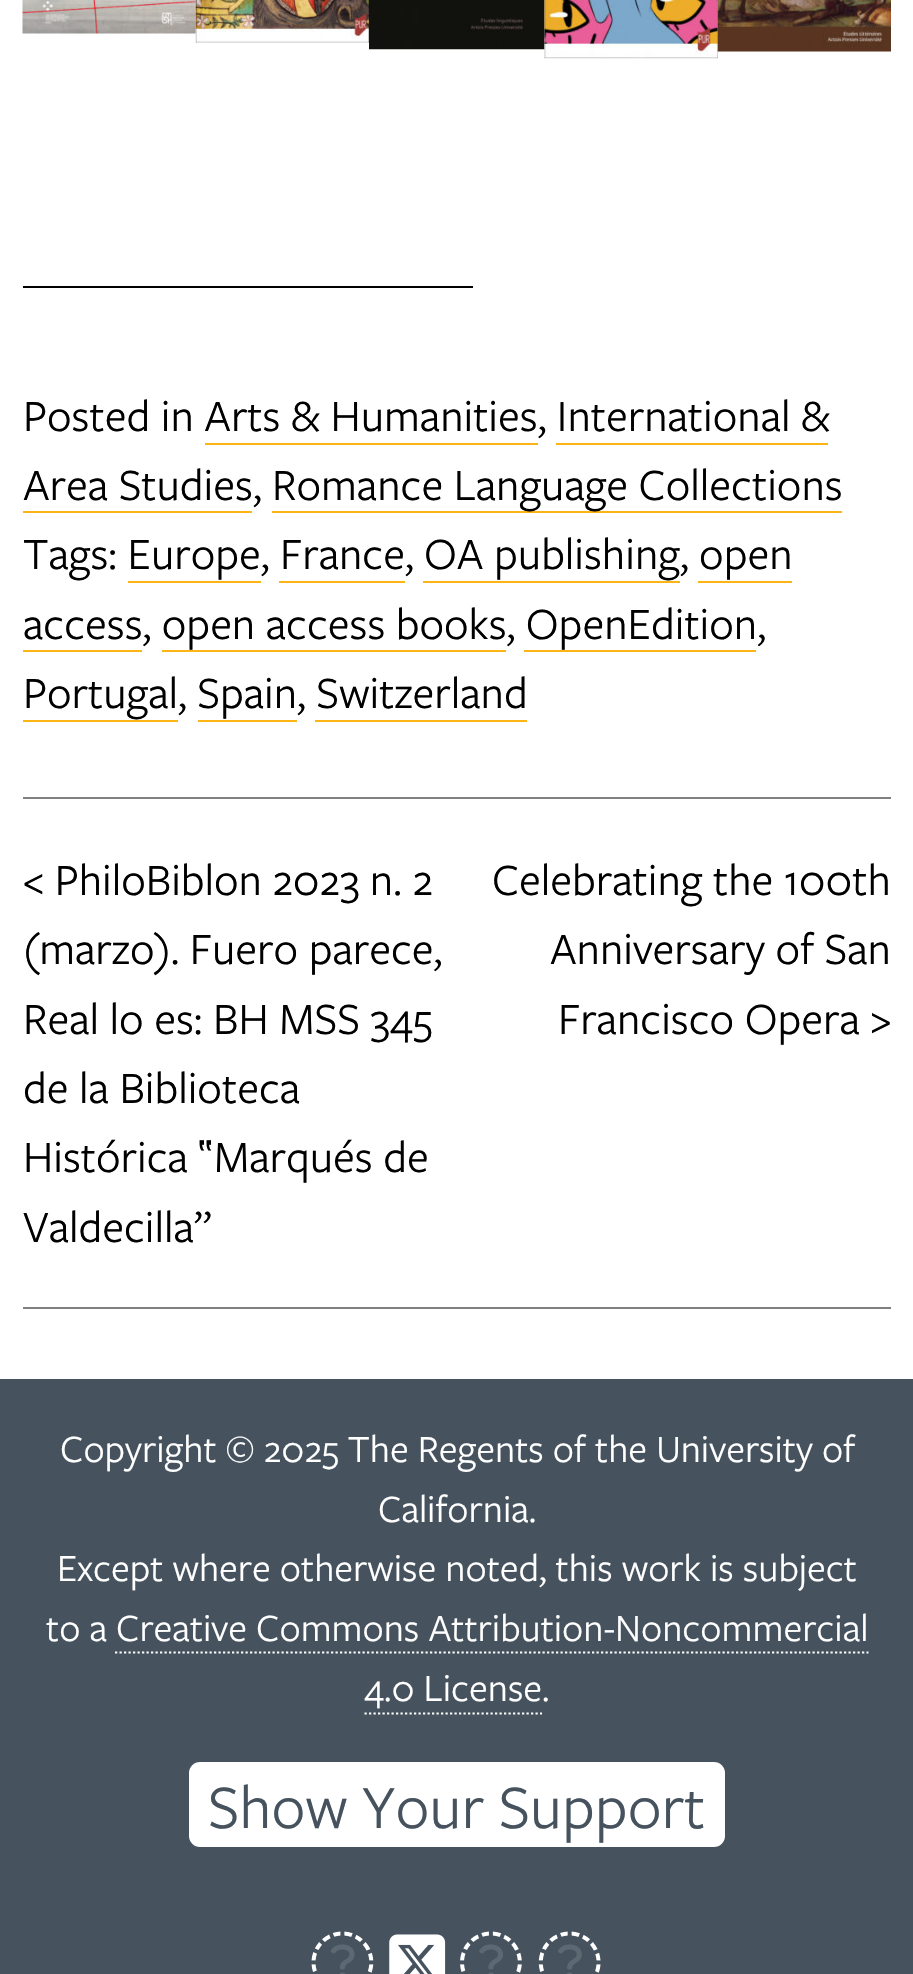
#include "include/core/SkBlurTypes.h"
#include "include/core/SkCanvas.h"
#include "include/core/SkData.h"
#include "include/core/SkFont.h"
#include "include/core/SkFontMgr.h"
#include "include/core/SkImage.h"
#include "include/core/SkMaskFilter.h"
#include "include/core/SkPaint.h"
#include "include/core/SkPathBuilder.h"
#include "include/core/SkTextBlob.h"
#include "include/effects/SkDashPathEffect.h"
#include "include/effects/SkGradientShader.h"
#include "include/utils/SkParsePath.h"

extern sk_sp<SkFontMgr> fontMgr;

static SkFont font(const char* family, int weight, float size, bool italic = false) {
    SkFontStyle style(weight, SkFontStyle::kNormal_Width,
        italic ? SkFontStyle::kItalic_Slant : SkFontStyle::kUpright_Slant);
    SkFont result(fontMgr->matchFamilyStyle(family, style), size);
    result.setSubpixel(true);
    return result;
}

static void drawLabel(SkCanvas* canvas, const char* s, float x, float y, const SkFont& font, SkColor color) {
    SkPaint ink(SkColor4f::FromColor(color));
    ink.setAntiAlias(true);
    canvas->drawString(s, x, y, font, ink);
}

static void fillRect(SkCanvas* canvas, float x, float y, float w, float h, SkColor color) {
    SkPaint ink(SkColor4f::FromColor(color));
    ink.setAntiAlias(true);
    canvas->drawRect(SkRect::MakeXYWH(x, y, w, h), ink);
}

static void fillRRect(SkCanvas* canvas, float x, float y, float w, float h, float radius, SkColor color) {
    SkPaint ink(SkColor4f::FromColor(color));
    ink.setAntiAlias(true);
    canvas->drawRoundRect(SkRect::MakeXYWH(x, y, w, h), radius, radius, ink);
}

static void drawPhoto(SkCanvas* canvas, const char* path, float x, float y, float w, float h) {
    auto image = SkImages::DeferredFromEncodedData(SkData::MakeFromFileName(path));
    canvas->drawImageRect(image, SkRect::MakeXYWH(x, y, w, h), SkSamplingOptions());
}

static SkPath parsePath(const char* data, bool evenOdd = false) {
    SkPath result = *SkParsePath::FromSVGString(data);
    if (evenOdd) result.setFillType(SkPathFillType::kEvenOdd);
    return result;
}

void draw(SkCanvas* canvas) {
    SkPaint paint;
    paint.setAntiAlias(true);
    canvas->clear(0xFFFFFFFF);
    drawPhoto(canvas, "assets/img1.png", 22, 0, 174, 34);
    drawPhoto(canvas, "assets/img2.png", 195, 0, 174, 43);
    drawPhoto(canvas, "assets/img3.png", 369, 0, 176, 50);
    drawPhoto(canvas, "assets/img4.png", 544, 0, 174, 59);
    drawPhoto(canvas, "assets/img5.png", 717, 0, 174, 52);
    fillRect(canvas, 23, 286, 450, 2, 0xFF000000);
    SkFont font1 = font("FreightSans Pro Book", 400, 46.25f);
    drawLabel(canvas, "Posted in Arts & Humanities, International &", 23, 431, font1, 0xFF000000);
    fillRect(canvas, 205, 443, 333, 2, 0xFFFDB515);
    drawLabel(canvas, "Area Studies,", 23, 500, font1, 0xFF000000);
    fillRect(canvas, 556, 443, 272, 2, 0xFFFDB515);
    fillRect(canvas, 23, 511, 229, 2, 0xFFFDB515);
    fillRect(canvas, 272, 511, 570, 2, 0xFFFDB515);
    drawLabel(canvas, "Romance Language Collections", 272, 500, font1, 0xFF000000);
    drawLabel(canvas, "Tags: Europe, France, OA publishing, open", 23, 569, font1, 0xFF000000);
    fillRect(canvas, 128, 581, 133, 2, 0xFFFDB515);
    fillRect(canvas, 279, 581, 126, 2, 0xFFFDB515);
    fillRect(canvas, 423, 581, 257, 2, 0xFFFDB515);
    fillRect(canvas, 698, 581, 94, 2, 0xFFFDB515);
    drawLabel(canvas, "access, open access books, OpenEdition,", 23, 639, font1, 0xFF000000);
    fillRect(canvas, 23, 650, 119, 2, 0xFFFDB515);
    fillRect(canvas, 162, 650, 344, 2, 0xFFFDB515);
    fillRect(canvas, 524, 650, 232, 2, 0xFFFDB515);
    drawLabel(canvas, "Portugal, Spain, Switzerland", 23, 708, font1, 0xFF000000);
    fillRect(canvas, 23, 720, 155, 2, 0xFFFDB515);
    fillRect(canvas, 198, 720, 99, 2, 0xFFFDB515);
    fillRect(canvas, 315, 720, 212, 2, 0xFFFDB515);
    fillRect(canvas, 23, 797, 868, 2, 0xFF808080);
    fillRect(canvas, 23, 1307, 868, 2, 0xFF808080);
    drawLabel(canvas, "< PhiloBiblon 2023 n. 2", 23, 895, font1, 0xFF000000);
    drawLabel(canvas, "(marzo). Fuero parece,", 23, 964, font1, 0xFF000000);
    drawLabel(canvas, "Real lo es: BH MSS 345", 23, 1034, font1, 0xFF000000);
    drawLabel(canvas, "de la Biblioteca", 23, 1103, font1, 0xFF000000);
    drawLabel(canvas, "Histórica", 23, 1172, font1, 0xFF000000);
    SkFont font2 = font("Liberation Sans", 400, 46.25f);
    drawLabel(canvas, "‟", 198, 1172, font2, 0xFF000000);
    drawLabel(canvas, "Marqués de", 214, 1172, font1, 0xFF000000);
    drawLabel(canvas, "Valdecilla”", 23, 1242, font1, 0xFF000000);
    drawLabel(canvas, "Celebrating the 100th", 492, 895, font1, 0xFF000000);
    drawLabel(canvas, "Anniversary of San", 550, 964, font1, 0xFF000000);
    drawLabel(canvas, "Francisco Opera >", 558, 1034, font1, 0xFF000000);
    fillRect(canvas, 0, 1379, 913, 595, 0xFF46535E);
    SkFont font3 = font("FreightSans Pro Book", 400, 39.9f);
    drawLabel(canvas, "Copyright © 2025 The Regents of the University of", 60, 1462, font3, 0xFFFFFFFF);
    drawLabel(canvas, "California.", 378, 1522, font3, 0xFFFFFFFF);
    drawLabel(canvas, "Except where otherwise noted, this work is subject", 57, 1581, font3, 0xFFFFFFFF);
    drawLabel(canvas, "to a Creative Commons Attribution-Noncommercial", 46, 1641, font3, 0xFFFFFFFF);
    drawLabel(canvas, "4.0 License.", 364, 1701, font3, 0xFFFFFFFF);
    paint.setStroke(true);
    paint.setStrokeWidth(2.2f);
    paint.setColor(0xFFFFFFFF);
    paint.setPathEffect(SkDashPathEffect::Make({{2.25f, 2.25f}}, 0));
    canvas->drawPath(parsePath("M115 1652.5H868.5"), paint);
    paint.setPathEffect(nullptr);
    paint.setPathEffect(SkDashPathEffect::Make({{2.25f, 2.25f}}, 0));
    canvas->drawPath(parsePath("M364.5 1713.5H542"), paint);
    paint.setPathEffect(nullptr);
    fillRRect(canvas, 189, 1762, 536, 85, 11, 0xFFFFFFFF);
    SkFont font4 = font("FreightSans Pro Book", 400, 63.75f);
    drawLabel(canvas, "Show Your Support", 208, 1828, font4, 0xFF46535E);
    drawPhoto(canvas, "assets/img6.png", 311, 1931, 63, 43);
    drawPhoto(canvas, "assets/img7.png", 389, 1934, 57, 40);
    drawPhoto(canvas, "assets/img8.png", 460, 1931, 62, 43);
    drawPhoto(canvas, "assets/img9.png", 538, 1931, 63, 43);
}
